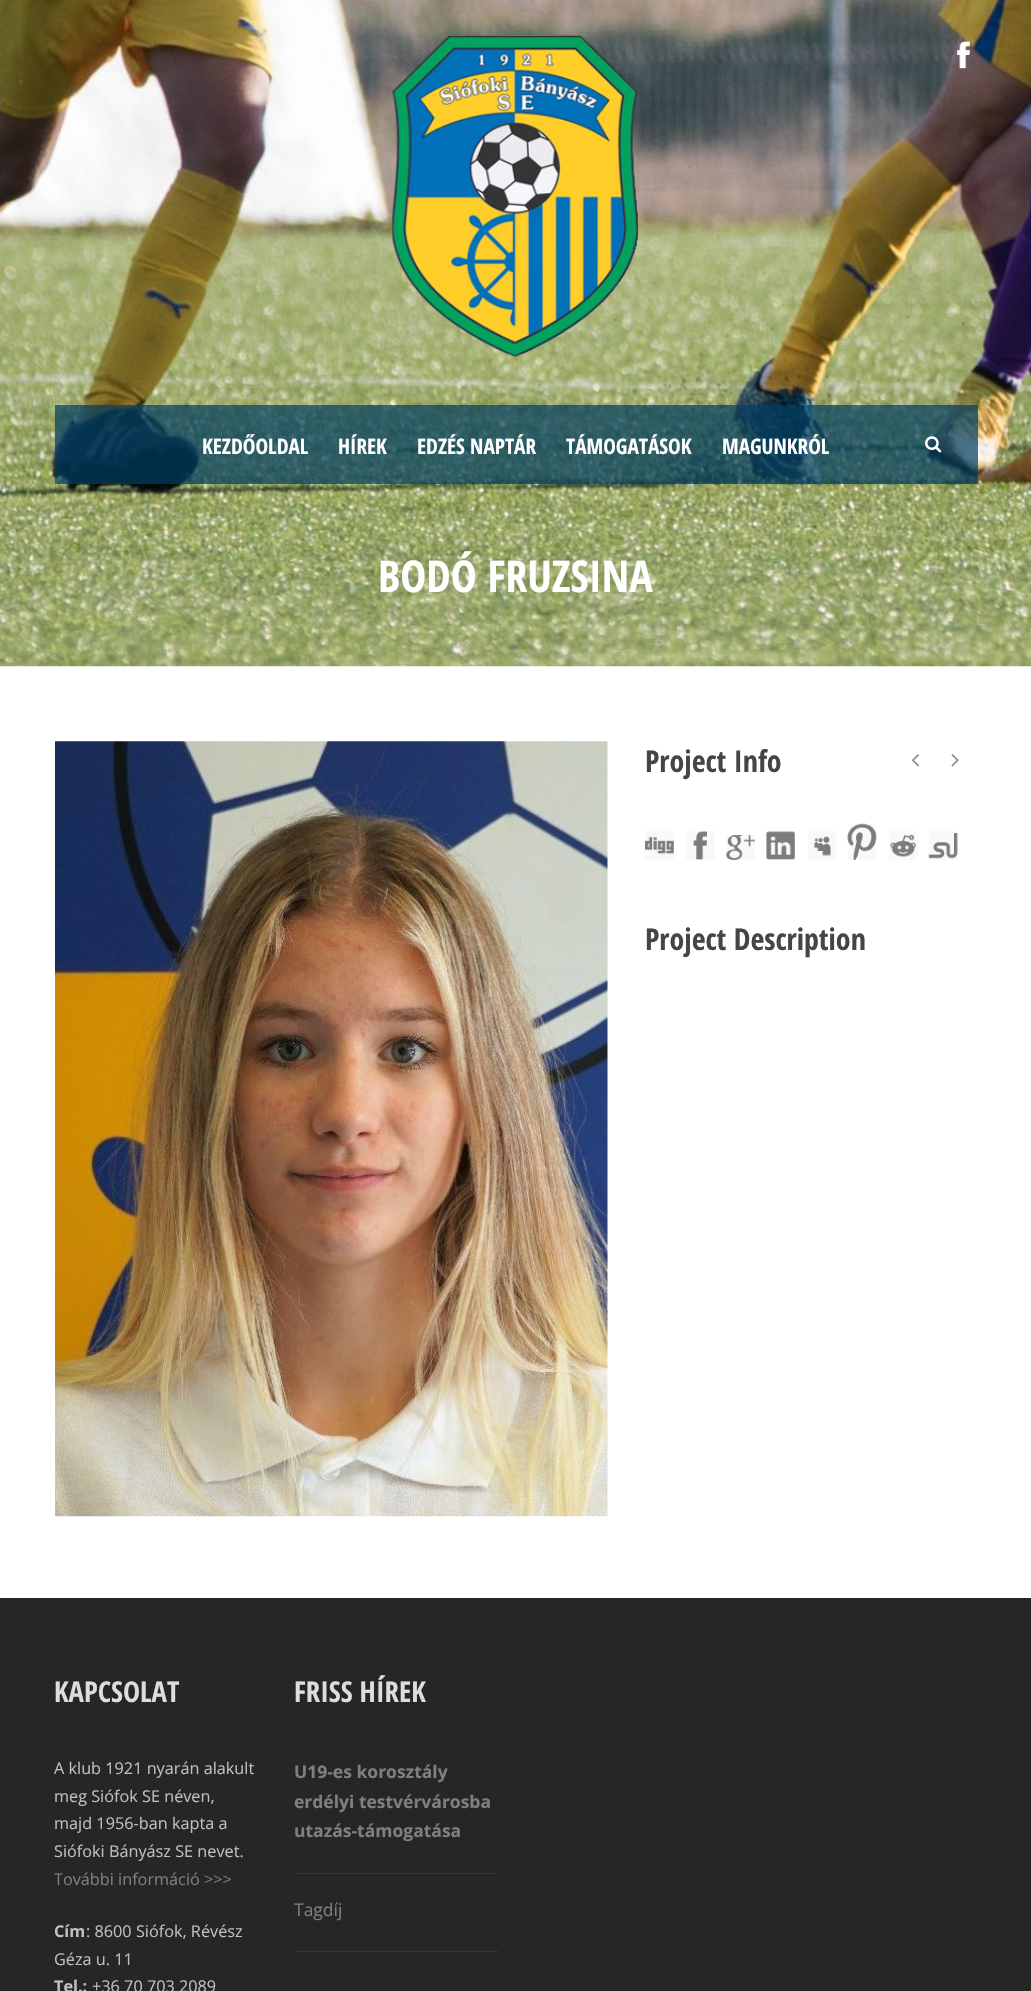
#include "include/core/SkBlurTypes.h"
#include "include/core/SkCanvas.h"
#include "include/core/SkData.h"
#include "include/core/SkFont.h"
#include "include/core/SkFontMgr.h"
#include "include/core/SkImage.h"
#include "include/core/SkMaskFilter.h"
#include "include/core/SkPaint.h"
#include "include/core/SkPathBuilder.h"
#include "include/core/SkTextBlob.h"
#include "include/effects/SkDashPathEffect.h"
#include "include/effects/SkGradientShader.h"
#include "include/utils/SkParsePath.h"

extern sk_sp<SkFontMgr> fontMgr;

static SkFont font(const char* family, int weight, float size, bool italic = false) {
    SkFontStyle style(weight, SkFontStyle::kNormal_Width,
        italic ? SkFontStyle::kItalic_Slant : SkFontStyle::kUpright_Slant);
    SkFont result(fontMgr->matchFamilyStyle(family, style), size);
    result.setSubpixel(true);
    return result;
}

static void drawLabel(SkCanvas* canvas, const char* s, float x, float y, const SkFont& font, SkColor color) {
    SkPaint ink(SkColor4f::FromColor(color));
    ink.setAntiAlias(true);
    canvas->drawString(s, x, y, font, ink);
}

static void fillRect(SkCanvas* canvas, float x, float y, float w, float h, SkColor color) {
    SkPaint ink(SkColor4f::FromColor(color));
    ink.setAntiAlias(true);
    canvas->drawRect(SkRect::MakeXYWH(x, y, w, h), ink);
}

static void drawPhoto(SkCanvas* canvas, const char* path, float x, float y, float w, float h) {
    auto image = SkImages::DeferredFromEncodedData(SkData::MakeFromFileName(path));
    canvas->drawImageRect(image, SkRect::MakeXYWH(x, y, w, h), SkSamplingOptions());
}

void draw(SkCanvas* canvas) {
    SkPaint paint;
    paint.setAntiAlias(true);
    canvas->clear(0xFFFFFFFF);
    drawPhoto(canvas, "assets/img1.png", 0, 0, 1031, 667);
    drawPhoto(canvas, "assets/img2.png", 956, 41, 14, 28);
    drawPhoto(canvas, "assets/img3.png", 391, 35, 247, 323);
    fillRect(canvas, 55, 405, 923, 79, 0xB3003D60);
    SkFont font1 = font("Open Sans Condensed", 700, 21.25f);
    drawLabel(canvas, "KEZDŐOLDAL", 202, 454, font1, 0xFFFFFFFF);
    drawLabel(canvas, "HÍREK", 338, 454, font1, 0xFFFFFFFF);
    drawLabel(canvas, "EDZÉS NAPTÁR", 417, 454, font1, 0xFFFFFFFF);
    drawLabel(canvas, "TÁMOGATÁSOK", 566, 454, font1, 0xFFFFFFFF);
    drawLabel(canvas, "MAGUNKRÓL", 722, 454, font1, 0xFFFFFFFF);
    drawPhoto(canvas, "assets/img4.png", 925, 436, 17, 17);
    SkFont font2 = font("Open Sans Condensed", 700, 43.75f);
    drawLabel(canvas, "BODÓ FRUZSINA", 378, 592, font2, 0xFFFFFFFF);
    drawPhoto(canvas, "assets/img5.png", 55, 741, 553, 776);
    SkFont font3 = font("Open Sans Condensed", 700, 30);
    drawLabel(canvas, "Project Info", 645, 772, font3, 0xFF454545);
    drawPhoto(canvas, "assets/img6.png", 911, 754, 9, 13);
    drawPhoto(canvas, "assets/img7.png", 951, 754, 8, 13);
    fillRect(canvas, 645, 831, 29, 29, 0xFFF9F9F9);
    drawPhoto(canvas, "assets/img8.png", 645, 836, 29, 18);
    fillRect(canvas, 686, 831, 29, 29, 0xFFF9F9F9);
    drawPhoto(canvas, "assets/img9.png", 693, 831, 14, 29);
    fillRect(canvas, 726, 835, 29, 25, 0xFFF9F9F9);
    drawPhoto(canvas, "assets/img10.png", 726, 835, 29, 25);
    fillRect(canvas, 766, 831, 29, 29, 0xFFF9F9F9);
    drawPhoto(canvas, "assets/img11.png", 766, 831, 29, 29);
    fillRect(canvas, 808, 831, 28, 29, 0xFFF9F9F9);
    drawPhoto(canvas, "assets/img12.png", 813, 836, 18, 20);
    fillRect(canvas, 848, 824, 28, 36, 0xFFF9F9F9);
    drawPhoto(canvas, "assets/img13.png", 847, 823, 30, 37);
    fillRect(canvas, 889, 831, 29, 29, 0xFFF9F9F9);
    drawPhoto(canvas, "assets/img14.png", 890, 834, 26, 23);
    fillRect(canvas, 929, 831, 29, 29, 0xFFF9F9F9);
    drawPhoto(canvas, "assets/img15.png", 928, 833, 30, 26);
    drawLabel(canvas, "Project Description", 645, 950, font3, 0xFF454545);
    fillRect(canvas, 0, 1598, 1031, 393, 0xFF262626);
    SkFont font4 = font("Open Sans Condensed", 700, 28.75f);
    drawLabel(canvas, "KAPCSOLAT", 54, 1702, font4, 0xFFDDDDDD);
    SkFont font5 = font("Open Sans", 400, 16.25f);
    drawLabel(canvas, "A klub 1921 nyarán alakult", 54, 1774, font5, 0xFFBFBFBF);
    drawLabel(canvas, "meg Siófok SE néven,", 54, 1802, font5, 0xFFBFBFBF);
    drawLabel(canvas, "majd 1956-ban kapta a", 54, 1829, font5, 0xFFBFBFBF);
    drawLabel(canvas, "Siófoki Bányász SE nevet.", 54, 1857, font5, 0xFFBFBFBF);
    drawLabel(canvas, "További információ >>>", 54, 1885, font5, 0xFF7F7F7F);
    SkFont font6 = font("Open Sans", 700, 16.25f);
    drawLabel(canvas, "Cím", 54, 1937, font6, 0xFFBFBFBF);
    drawLabel(canvas, ": 8600 Siófok, Révész", 86, 1937, font5, 0xFFBFBFBF);
    drawLabel(canvas, "Géza u. 11", 54, 1965, font5, 0xFFBFBFBF);
    drawLabel(canvas, "Tel.:", 54, 1992, font6, 0xFFBFBFBF);
    drawLabel(canvas, "+36 70 703 2089", 92, 1992, font5, 0xFFBFBFBF);
    drawLabel(canvas, "FRISS HÍREK", 294, 1702, font4, 0xFFDDDDDD);
    fillRect(canvas, 295, 1873, 203, 1, 0xFF363636);
    SkFont font7 = font("Open Sans", 700, 17.5f);
    drawLabel(canvas, "U19-es korosztály", 294, 1778, font7, 0xFF7F7F7F);
    drawLabel(canvas, "erdélyi testvérvárosba", 294, 1808, font7, 0xFF7F7F7F);
    drawLabel(canvas, "utazás-támogatása", 294, 1837, font7, 0xFF7F7F7F);
    fillRect(canvas, 295, 1951, 203, 1, 0xFF363636);
    SkFont font8 = font("Open Sans", 400, 17.5f);
    drawLabel(canvas, "Tagdíj", 294, 1916, font8, 0xFF7F7F7F);
}
